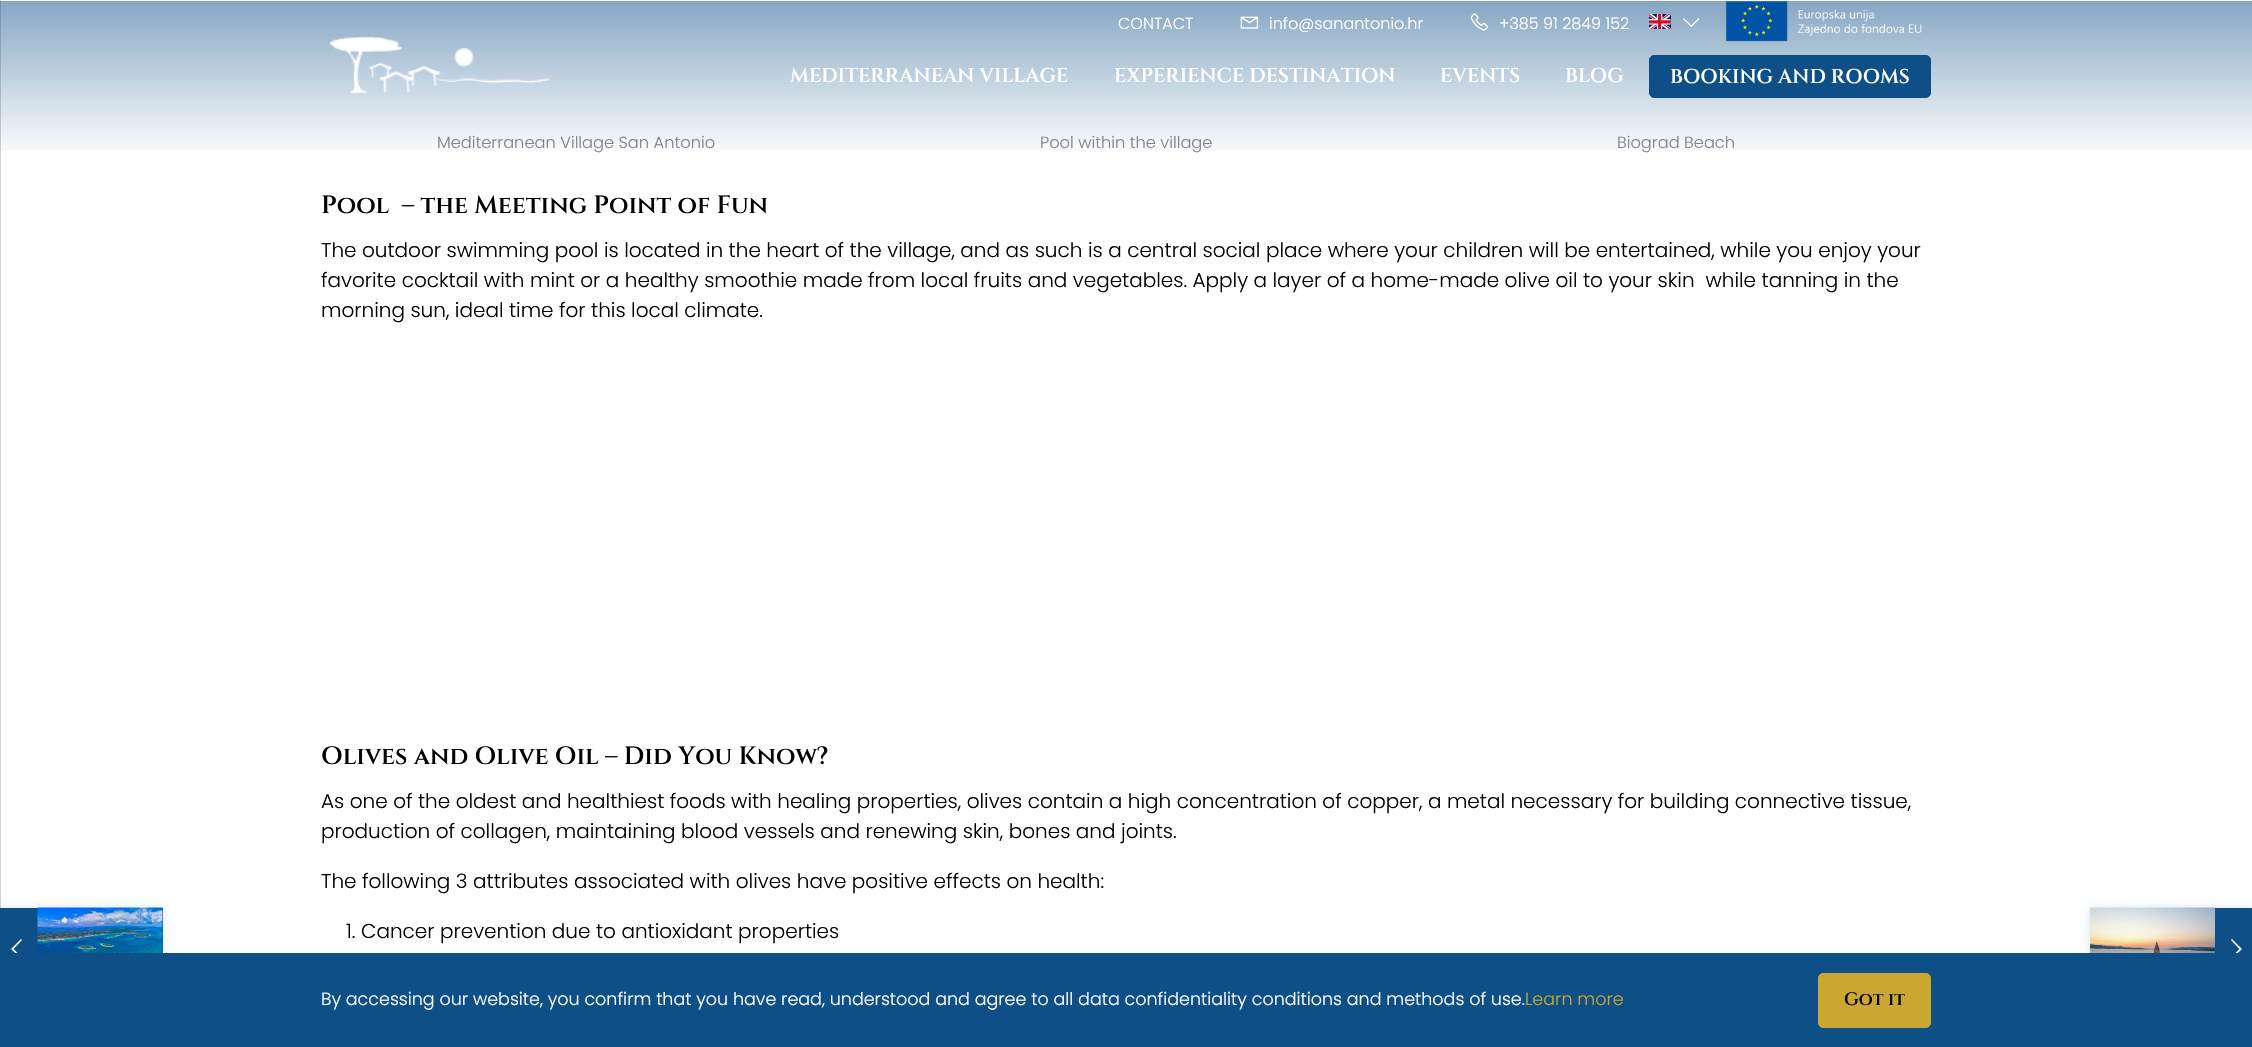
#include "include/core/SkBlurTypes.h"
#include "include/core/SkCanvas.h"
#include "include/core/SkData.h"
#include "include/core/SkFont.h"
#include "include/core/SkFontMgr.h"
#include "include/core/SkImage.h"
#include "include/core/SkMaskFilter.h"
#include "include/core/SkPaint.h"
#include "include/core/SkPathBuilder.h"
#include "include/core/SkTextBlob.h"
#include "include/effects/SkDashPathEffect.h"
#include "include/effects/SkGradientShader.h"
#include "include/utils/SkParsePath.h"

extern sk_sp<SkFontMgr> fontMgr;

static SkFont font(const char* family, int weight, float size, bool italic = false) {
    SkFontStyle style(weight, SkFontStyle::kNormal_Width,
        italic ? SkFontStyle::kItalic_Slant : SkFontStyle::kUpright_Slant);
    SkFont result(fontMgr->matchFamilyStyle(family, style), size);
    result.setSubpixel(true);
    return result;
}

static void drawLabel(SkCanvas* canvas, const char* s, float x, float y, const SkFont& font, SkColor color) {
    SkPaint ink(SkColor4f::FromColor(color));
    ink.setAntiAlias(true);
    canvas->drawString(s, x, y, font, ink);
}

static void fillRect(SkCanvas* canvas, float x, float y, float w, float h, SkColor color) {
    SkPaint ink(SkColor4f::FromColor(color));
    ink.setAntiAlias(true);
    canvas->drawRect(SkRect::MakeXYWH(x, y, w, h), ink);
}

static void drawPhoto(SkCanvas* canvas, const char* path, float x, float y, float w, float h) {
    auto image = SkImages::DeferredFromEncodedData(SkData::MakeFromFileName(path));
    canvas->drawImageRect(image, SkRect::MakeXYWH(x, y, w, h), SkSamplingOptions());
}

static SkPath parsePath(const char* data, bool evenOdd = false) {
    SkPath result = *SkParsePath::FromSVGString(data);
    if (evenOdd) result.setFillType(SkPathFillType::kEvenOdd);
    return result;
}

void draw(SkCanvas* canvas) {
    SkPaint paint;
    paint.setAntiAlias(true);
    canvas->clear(0xFFFFFFFF);
    paint.setStroke(true);
    paint.setStrokeWidth(1);
    paint.setColor(0xFFD2D2D2);
    canvas->drawRect(SkRect::MakeXYWH(0.5f, -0.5f, 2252, 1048), paint);
    SkFont font1 = font("Poppins", 300, 16.25f);
    drawLabel(canvas, "Mediterranean Village San Antonio", 437, 148, font1, 0xFF86878C);
    drawLabel(canvas, "Pool within the village", 1040, 148, font1, 0xFF86878C);
    drawLabel(canvas, "Biograd Beach", 1617, 148, font1, 0xFF86878C);
    paint.setStroke(false);
    {
        const SkColor colors[] = {0x800F4F87, 0x000F4F87};
        const float stops[] = {0, 1};
        const SkPoint ends[] = {{1126, 1.2f}, {1126, 158}};
        paint.setShader(SkGradientShader::MakeLinear(ends, colors, stops, 2, SkTileMode::kClamp));
        paint.setAlpha(255);
    }
    canvas->drawRect(SkRect::MakeXYWH(0, 1, 2252, 150), paint);
    SkFont font2 = font("Poppins", 300, 16);
    drawLabel(canvas, "CONTACT", 1118, 29, font2, 0xFFFFFFFF);
    drawPhoto(canvas, "assets/img1.png", 1240, 16, 19, 13);
    drawLabel(canvas, "info@sanantonio.hr", 1269, 29, font2, 0xFFFFFFFF);
    drawPhoto(canvas, "assets/img2.png", 1470, 13, 18, 18);
    drawLabel(canvas, "+385 91 2849 152", 1499, 29, font2, 0xFFFFFFFF);
    drawPhoto(canvas, "assets/img3.png", 1649, 14, 22, 15);
    drawPhoto(canvas, "assets/img4.png", 1683, 18, 17, 9);
    drawPhoto(canvas, "assets/img5.png", 1725, 1, 197, 41);
    drawPhoto(canvas, "assets/img6.png", 329, 36, 222, 58);
    SkFont font3 = font("Cinzel", 600, 20);
    drawLabel(canvas, "MEDITERRANEAN VILLAGE", 790, 82, font3, 0xFFFFFFFF);
    drawLabel(canvas, "EXPERIENCE DESTINATION", 1114, 82, font3, 0xFFFFFFFF);
    drawLabel(canvas, "EVENTS", 1440, 82, font3, 0xFFFFFFFF);
    drawLabel(canvas, "BLOG", 1565, 82, font3, 0xFFFFFFFF);
    paint.setShader(nullptr);
    paint.setColor(0xFF0F4F87);
    canvas->drawRoundRect(SkRect::MakeXYWH(1649.5f, 55.5f, 281, 42), 4.5f, 4.5f, paint);
    paint.setStroke(true);
    canvas->drawRoundRect(SkRect::MakeXYWH(1649.5f, 55.5f, 281, 42), 4.5f, 4.5f, paint);
    drawLabel(canvas, "BOOKING AND ROOMS", 1670, 83, font3, 0xFFFFFFFF);
    SkFont font4 = font("Cinzel", 600, 25);
    drawLabel(canvas, "Pool  – the Meeting Point of Fun", 321, 213, font4, 0xFF000000);
    SkFont font5 = font("Poppins", 300, 20);
    drawLabel(canvas, "The outdoor swimming pool is located in the heart of the village, and as such is a central social place where your children will be entertained, while you enjoy your", 321, 257, font5, 0xFF000000);
    drawLabel(canvas, "favorite cocktail with mint or a healthy smoothie made from local fruits and vegetables. Apply a layer of a home-made olive oil to your skin  while tanning in the", 321, 287, font5, 0xFF000000);
    drawLabel(canvas, "morning sun, ideal time for this local climate.", 321, 317, font5, 0xFF000000);
    drawLabel(canvas, "Olives and Olive Oil – Did You Know?", 321, 764, font4, 0xFF000000);
    drawLabel(canvas, "As one of the oldest and healthiest foods with healing properties, olives contain a high concentration of copper, a metal necessary for building connective tissue,", 321, 808, font5, 0xFF000000);
    drawLabel(canvas, "production of collagen, maintaining blood vessels and renewing skin, bones and joints.", 321, 838, font5, 0xFF000000);
    drawLabel(canvas, "The following 3 attributes associated with olives have positive effects on health:", 321, 888, font5, 0xFF000000);
    paint.setStroke(false);
    paint.setColor(0x260F4F87);
    paint.setMaskFilter(SkMaskFilter::MakeBlur(kNormal_SkBlurStyle, 5));
    canvas->drawRect(SkRect::MakeXYWH(0, 908, 163, 87), paint);
    paint.setMaskFilter(nullptr);
    fillRect(canvas, 0, 908, 163, 45, 0xFF0F4F87);
    paint.setColor(0xFFFFFFFF);
    canvas->drawPath(parsePath("M21 939L11 949L21 958.5L22 957.5L13.5 949L22 940Z"), paint);
    drawPhoto(canvas, "assets/img7.png", 37, 907, 126, 46);
    drawLabel(canvas, "1. Cancer prevention due to antioxidant properties", 346, 938, font5, 0xFF000000);
    paint.setColor(0x260F4F87);
    paint.setMaskFilter(SkMaskFilter::MakeBlur(kNormal_SkBlurStyle, 5));
    canvas->drawRect(SkRect::MakeXYWH(2090, 908, 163, 87), paint);
    paint.setMaskFilter(nullptr);
    fillRect(canvas, 2215, 908, 37, 45, 0xFF0F4F87);
    drawPhoto(canvas, "assets/img8.png", 2090, 907, 125, 46);
    paint.setColor(0xFFFFFFFF);
    canvas->drawPath(parsePath("M2232 939L2231 940L2239.5 949L2231 957.5L2232 958.5L2242 949Z"), paint);
    fillRect(canvas, 0, 953, 2252, 94, 0xFF0F4F87);
    SkFont font6 = font("Poppins", 300, 17.5f);
    drawLabel(canvas, "By accessing our website, you confirm that you have read, understood and agree to all data confidentiality conditions and methods of use.", 321, 1005, font6, 0xFFFFFFFF);
    drawLabel(canvas, "Learn more", 1525, 1005, font6, 0xFFC9A731);
    paint.setColor(0xFFC9A731);
    canvas->drawRoundRect(SkRect::MakeXYWH(1818.5f, 973.5f, 112, 54), 4.5f, 4.5f, paint);
    paint.setStroke(true);
    canvas->drawRoundRect(SkRect::MakeXYWH(1818.5f, 973.5f, 112, 54), 4.5f, 4.5f, paint);
    SkFont font7 = font("Cinzel", 600, 18);
    drawLabel(canvas, "Got it", 1844, 1005, font7, 0xFF000000);
}
